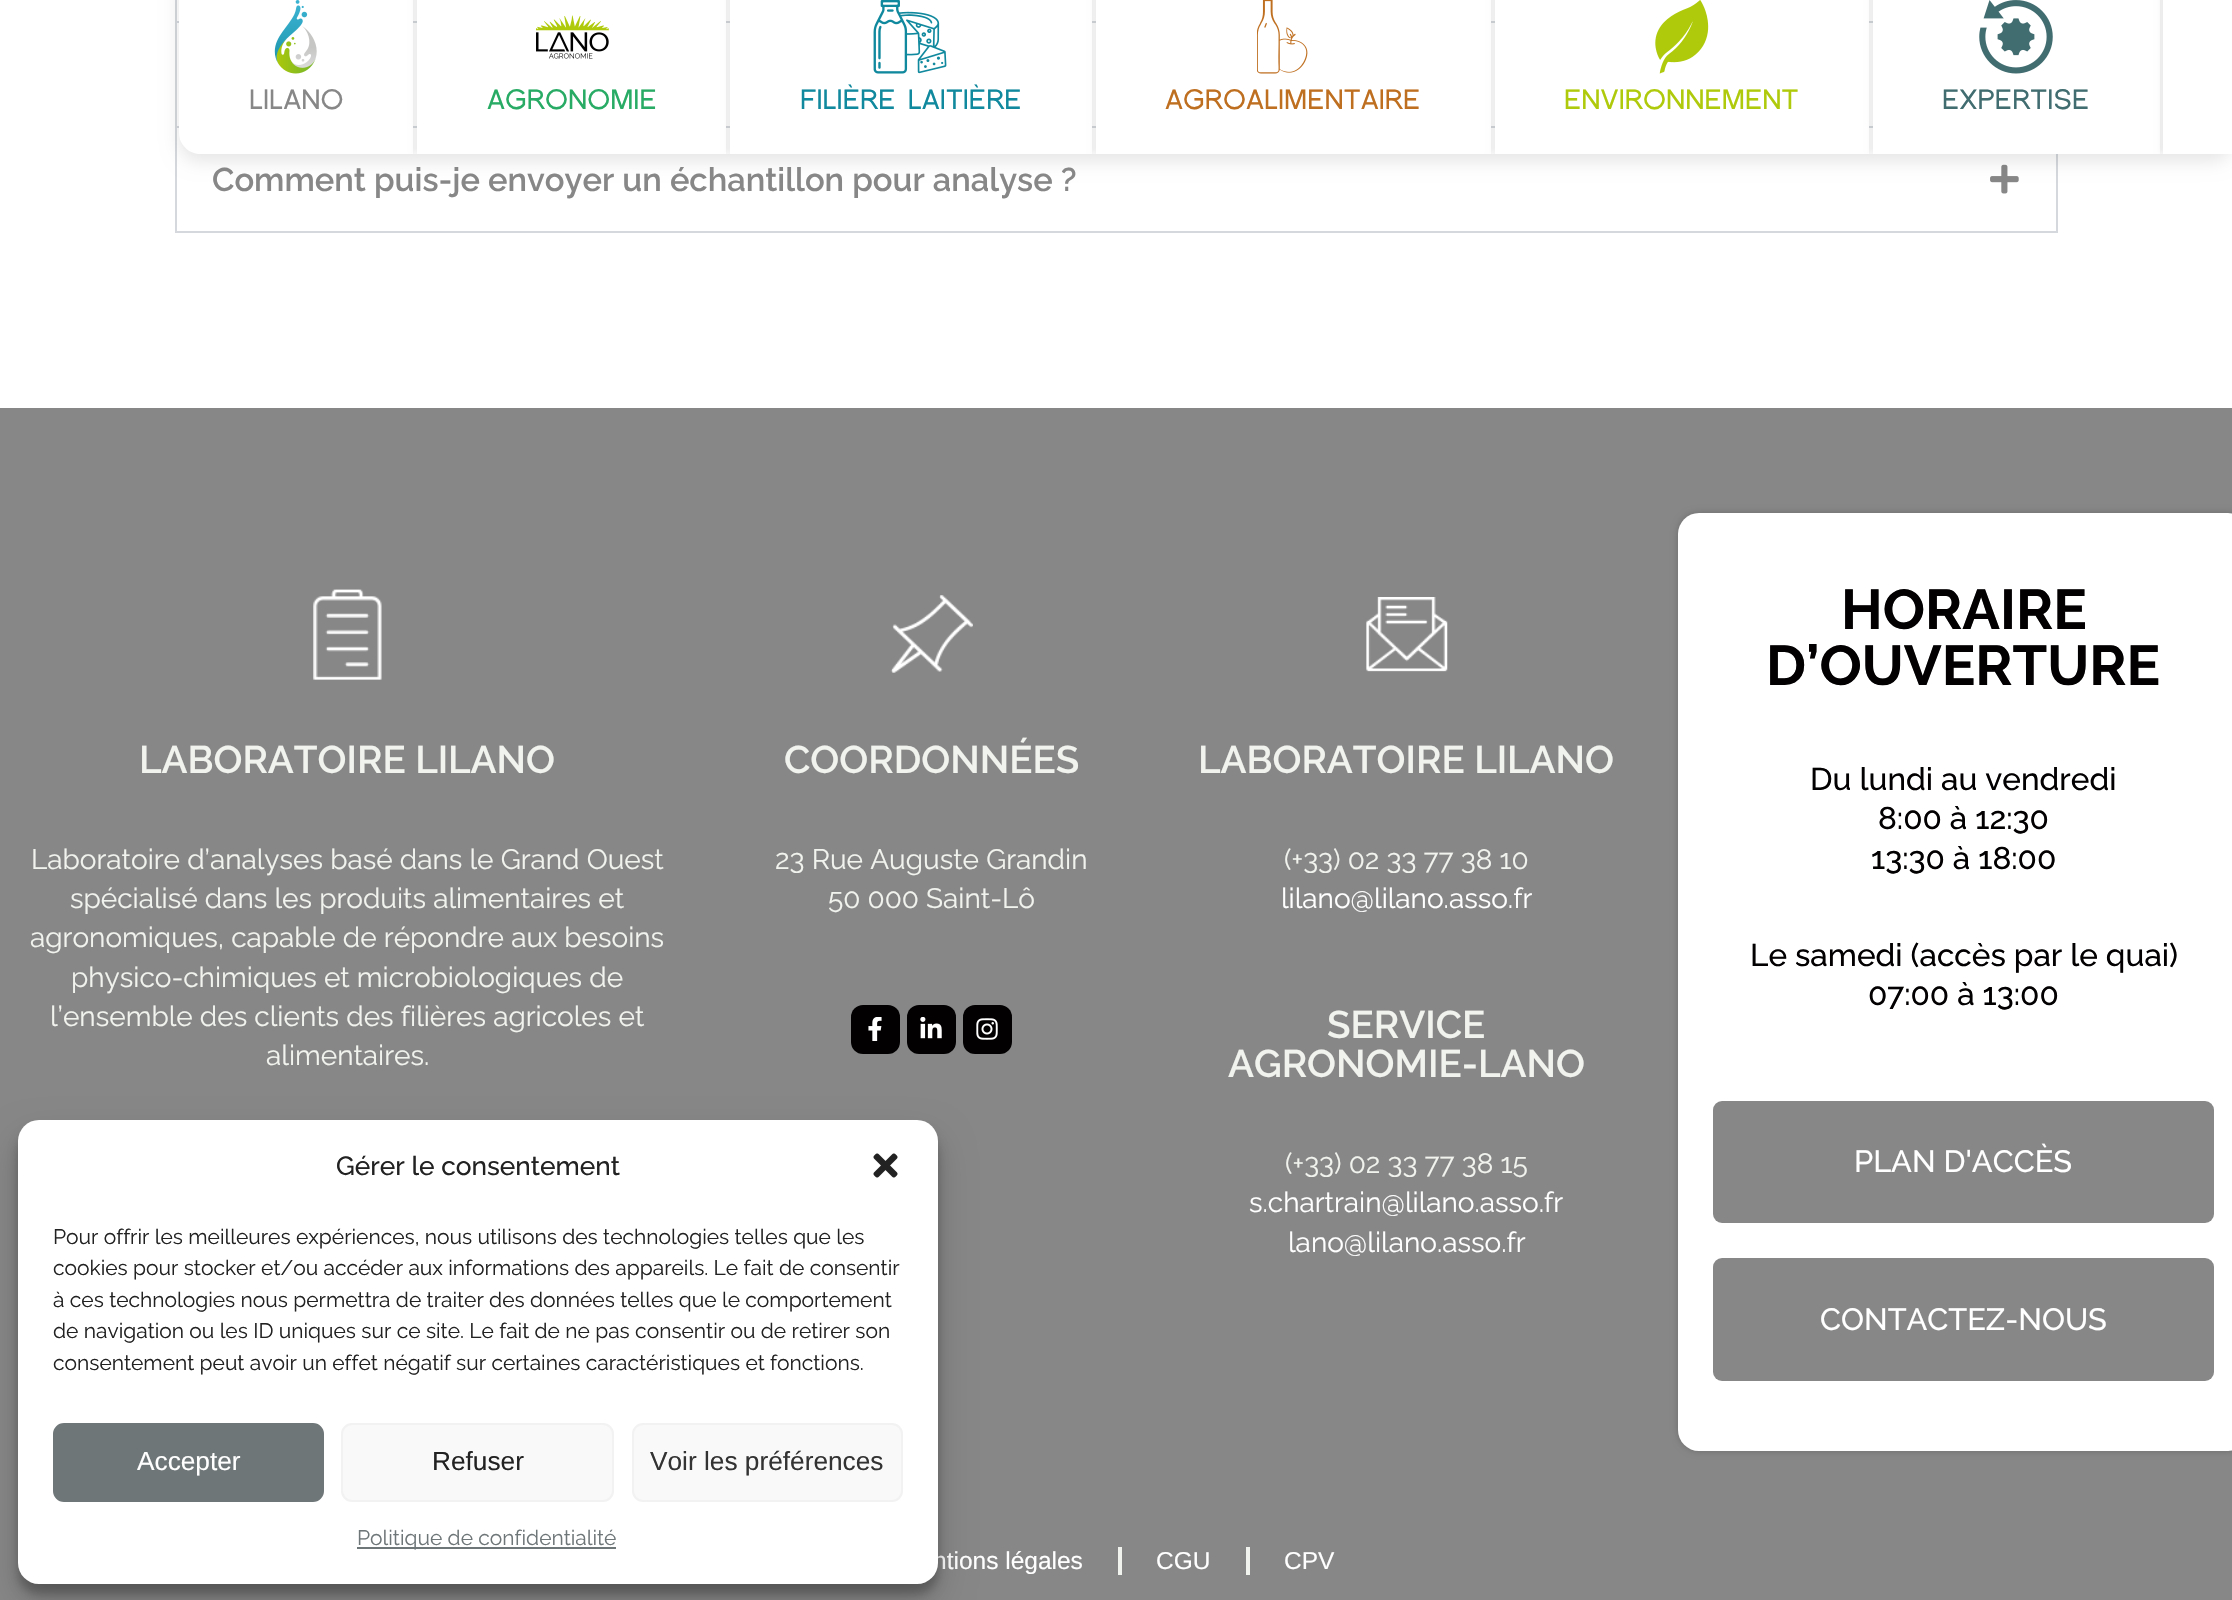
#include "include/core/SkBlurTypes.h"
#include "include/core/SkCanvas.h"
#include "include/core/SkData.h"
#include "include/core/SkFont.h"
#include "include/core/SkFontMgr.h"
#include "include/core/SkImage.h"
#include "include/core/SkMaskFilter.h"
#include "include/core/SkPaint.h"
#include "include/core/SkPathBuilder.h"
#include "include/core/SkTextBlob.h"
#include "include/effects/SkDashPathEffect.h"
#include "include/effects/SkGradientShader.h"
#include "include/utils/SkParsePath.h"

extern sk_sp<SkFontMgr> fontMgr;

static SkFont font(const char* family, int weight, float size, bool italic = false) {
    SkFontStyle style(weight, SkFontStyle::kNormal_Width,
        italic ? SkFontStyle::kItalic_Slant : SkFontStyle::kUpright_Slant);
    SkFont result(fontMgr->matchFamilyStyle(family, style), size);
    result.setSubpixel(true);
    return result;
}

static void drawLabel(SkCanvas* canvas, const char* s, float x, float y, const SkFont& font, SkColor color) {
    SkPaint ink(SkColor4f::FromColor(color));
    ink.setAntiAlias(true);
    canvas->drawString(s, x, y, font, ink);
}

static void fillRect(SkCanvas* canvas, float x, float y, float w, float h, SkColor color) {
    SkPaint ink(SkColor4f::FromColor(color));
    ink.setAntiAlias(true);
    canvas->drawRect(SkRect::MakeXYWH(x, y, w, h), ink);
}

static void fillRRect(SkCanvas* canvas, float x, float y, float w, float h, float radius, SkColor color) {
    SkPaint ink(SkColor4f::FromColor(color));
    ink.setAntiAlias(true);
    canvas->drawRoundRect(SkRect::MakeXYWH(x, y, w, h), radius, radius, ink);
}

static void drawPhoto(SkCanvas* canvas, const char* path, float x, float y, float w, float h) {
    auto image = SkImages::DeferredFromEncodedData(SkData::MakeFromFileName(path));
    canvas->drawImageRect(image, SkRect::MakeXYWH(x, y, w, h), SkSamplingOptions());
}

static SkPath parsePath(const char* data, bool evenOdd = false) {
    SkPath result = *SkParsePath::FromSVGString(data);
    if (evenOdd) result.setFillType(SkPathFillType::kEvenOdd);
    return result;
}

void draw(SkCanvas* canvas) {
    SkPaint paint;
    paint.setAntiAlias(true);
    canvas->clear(0xFFFFFFFF);
    fillRect(canvas, 175, 21, 1698, 2, 0xFFD5D8DC);
    fillRect(canvas, 175, 0, 2, 23, 0xFFD5D8DC);
    fillRect(canvas, 175, 126, 1698, 2, 0xFFD5D8DC);
    fillRect(canvas, 175, 23, 2, 105, 0xFFD5D8DC);
    fillRect(canvas, 2056, 154, 2, 79, 0xFFD5D8DC);
    fillRect(canvas, 175, 231, 1883, 2, 0xFFD5D8DC);
    fillRect(canvas, 175, 128, 2, 105, 0xFFD5D8DC);
    drawPhoto(canvas, "assets/img7.png", 1990, 164, 29, 30);
    canvas->save();
    canvas->clipPath(parsePath("M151 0H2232V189H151ZM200-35H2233V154H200C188.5 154 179 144.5 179 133V-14C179-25.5 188.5-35 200-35Z", true), true);
    paint.setColor(0x1A000000);
    paint.setMaskFilter(SkMaskFilter::MakeBlur(kNormal_SkBlurStyle, 9));
    canvas->drawRoundRect(SkRect::MakeXYWH(179, -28, 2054, 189), 21, 21, paint);
    paint.setMaskFilter(nullptr);
    canvas->restore();
    canvas->save();
    canvas->clipPath(parsePath("M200-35H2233V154H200C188.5 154 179 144.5 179 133V-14C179-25.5 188.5-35 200-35Z"), true);
    paint.setMaskFilter(SkMaskFilter::MakeBlur(kNormal_SkBlurStyle, 3.5f));
    canvas->drawRect(SkRect::MakeXYWH(179, -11, 234, 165), paint);
    paint.setMaskFilter(nullptr);
    canvas->restore();
    paint.setColor(0xFFFFFFFF);
    canvas->drawPath(parsePath("M200-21H413V154H200C188.5 154 179 144.5 179 133V0C179-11.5 188.5-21 200-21Z"), paint);
    drawPhoto(canvas, "assets/img1.png", 274, 0, 43, 74);
    SkFont font1 = font("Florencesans", 400, 28);
    drawLabel(canvas, "LILANO", 249, 109, font1, 0xFF878787);
    canvas->save();
    canvas->clipPath(parsePath("M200-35H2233V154H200C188.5 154 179 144.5 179 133V-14C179-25.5 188.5-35 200-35Z"), true);
    paint.setColor(0x1A000000);
    paint.setMaskFilter(SkMaskFilter::MakeBlur(kNormal_SkBlurStyle, 3.5f));
    canvas->drawRect(SkRect::MakeXYWH(417, -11, 309, 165), paint);
    paint.setMaskFilter(nullptr);
    canvas->restore();
    fillRect(canvas, 417, 0, 309, 154, 0xFFFFFFFF);
    drawPhoto(canvas, "assets/img2.png", 536, 15, 73, 44);
    drawLabel(canvas, "AGRONOMIE", 487, 109, font1, 0xFF28AB64);
    canvas->save();
    canvas->clipPath(parsePath("M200-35H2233V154H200C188.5 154 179 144.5 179 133V-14C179-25.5 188.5-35 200-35Z"), true);
    paint.setMaskFilter(SkMaskFilter::MakeBlur(kNormal_SkBlurStyle, 3.5f));
    canvas->drawRect(SkRect::MakeXYWH(730, -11, 362, 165), paint);
    paint.setMaskFilter(nullptr);
    canvas->restore();
    fillRect(canvas, 730, 0, 362, 154, 0xFFFFFFFF);
    drawPhoto(canvas, "assets/img3.png", 873, 0, 74, 74);
    drawLabel(canvas, "FILIÈRE LAITIÈRE", 800, 109, font1, 0xFF10889D);
    canvas->save();
    canvas->clipPath(parsePath("M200-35H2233V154H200C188.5 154 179 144.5 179 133V-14C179-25.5 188.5-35 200-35Z"), true);
    paint.setMaskFilter(SkMaskFilter::MakeBlur(kNormal_SkBlurStyle, 3.5f));
    canvas->drawRect(SkRect::MakeXYWH(1096, -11, 395, 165), paint);
    paint.setMaskFilter(nullptr);
    canvas->restore();
    fillRect(canvas, 1096, 0, 395, 154, 0xFFFFFFFF);
    drawPhoto(canvas, "assets/img4.png", 1257, 0, 51, 74);
    drawLabel(canvas, "AGROALIMENTAIRE", 1165, 109, font1, 0xFFBF6F20);
    canvas->save();
    canvas->clipPath(parsePath("M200-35H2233V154H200C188.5 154 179 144.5 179 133V-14C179-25.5 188.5-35 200-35Z"), true);
    paint.setMaskFilter(SkMaskFilter::MakeBlur(kNormal_SkBlurStyle, 3.5f));
    canvas->drawRect(SkRect::MakeXYWH(1495, -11, 374, 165), paint);
    paint.setMaskFilter(nullptr);
    canvas->restore();
    fillRect(canvas, 1495, 0, 374, 154, 0xFFFFFFFF);
    drawPhoto(canvas, "assets/img5.png", 1655, 0, 54, 74);
    drawLabel(canvas, "ENVIRONNEMENT", 1564, 109, font1, 0xFFAFCA0B);
    canvas->save();
    canvas->clipPath(parsePath("M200-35H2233V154H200C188.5 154 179 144.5 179 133V-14C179-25.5 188.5-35 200-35Z"), true);
    paint.setMaskFilter(SkMaskFilter::MakeBlur(kNormal_SkBlurStyle, 3.5f));
    canvas->drawRect(SkRect::MakeXYWH(1873, -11, 287, 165), paint);
    paint.setMaskFilter(nullptr);
    canvas->restore();
    fillRect(canvas, 1873, 0, 287, 154, 0xFFFFFFFF);
    drawPhoto(canvas, "assets/img6.png", 1979, 0, 74, 74);
    drawLabel(canvas, "EXPERTISE", 1942, 109, font1, 0xFF416C70);
    canvas->save();
    canvas->clipPath(parsePath("M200-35H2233V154H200C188.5 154 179 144.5 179 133V-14C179-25.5 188.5-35 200-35Z"), true);
    paint.setMaskFilter(SkMaskFilter::MakeBlur(kNormal_SkBlurStyle, 3.5f));
    canvas->drawRect(SkRect::MakeXYWH(2163, -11, 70, 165), paint);
    paint.setMaskFilter(nullptr);
    canvas->restore();
    fillRect(canvas, 2163, 0, 69, 154, 0xFFFFFFFF);
    SkFont font2 = font("Raleway", 600, 32.75f);
    drawLabel(canvas, "Comment puis-je envoyer un échantillon pour analyse ?", 212, 191, font2, 0xFF878787);
    fillRect(canvas, 0, 408, 2232, 1192, 0xFF878787);
    drawPhoto(canvas, "assets/img8.png", 313, 589, 69, 91);
    SkFont font3 = font("Raleway", 600, 38.5f);
    drawLabel(canvas, "LABORATOIRE LILANO", 139, 773, font3, 0xFFF1F3EE);
    SkFont font4 = font("Raleway", 400, 28);
    drawLabel(canvas, "Laboratoire d’analyses basé dans le Grand Ouest", 31, 869, font4, 0xFFF1F3EE);
    drawLabel(canvas, "spécialisé dans les produits alimentaires et", 70, 908, font4, 0xFFF1F3EE);
    drawLabel(canvas, "agronomiques, capable de répondre aux besoins", 30, 947, font4, 0xFFF1F3EE);
    drawLabel(canvas, "physico-chimiques et microbiologiques de", 71, 987, font4, 0xFFF1F3EE);
    drawLabel(canvas, "l’ensemble des clients des filières agricoles et", 50, 1026, font4, 0xFFF1F3EE);
    drawLabel(canvas, "alimentaires.", 266, 1065, font4, 0xFFF1F3EE);
    drawPhoto(canvas, "assets/img9.png", 890, 595, 83, 78);
    drawLabel(canvas, "COORDONNÉES", 784, 773, font3, 0xFFF1F3EE);
    drawLabel(canvas, "23 Rue Auguste Grandin", 775, 869, font4, 0xFFF1F3EE);
    drawLabel(canvas, "50 000 Saint-Lô", 828, 908, font4, 0xFFF1F3EE);
    fillRRect(canvas, 851, 1005, 49, 49, 12, 0xFF020000);
    drawPhoto(canvas, "assets/img10.png", 868, 1017, 14, 24);
    fillRRect(canvas, 907, 1005, 49, 49, 12, 0xFF020000);
    drawPhoto(canvas, "assets/img11.png", 920, 1017, 22, 22);
    fillRRect(canvas, 963, 1005, 49, 49, 12, 0xFF020000);
    drawPhoto(canvas, "assets/img12.png", 976, 1018, 22, 22);
    drawPhoto(canvas, "assets/img13.png", 1366, 597, 82, 75);
    drawLabel(canvas, "LABORATOIRE LILANO", 1198, 773, font3, 0xFFF1F3EE);
    drawLabel(canvas, "(+33) 02 33 77 38 10", 1284, 869, font4, 0xFFF1F3EE);
    drawLabel(canvas, "lilano@lilano.asso.fr", 1281, 908, font4, 0xFFFFFFFF);
    drawLabel(canvas, "SERVICE", 1327, 1038, font3, 0xFFF1F3EE);
    drawLabel(canvas, "AGRONOMIE-LANO", 1228, 1077, font3, 0xFFF1F3EE);
    drawLabel(canvas, "(+33) 02 33 77 38 15", 1285, 1173, font4, 0xFFF1F3EE);
    drawLabel(canvas, "s.chartrain@lilano.asso.fr", 1249, 1212, font4, 0xFFFFFFFF);
    drawLabel(canvas, "lano@lilano.asso.fr", 1288, 1252, font4, 0xFFFFFFFF);
    paint.setColor(0x33000000);
    paint.setMaskFilter(SkMaskFilter::MakeBlur(kNormal_SkBlurStyle, 3.5f));
    canvas->drawRoundRect(SkRect::MakeXYWH(1678, 513, 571, 938), 21, 21, paint);
    paint.setMaskFilter(nullptr);
    fillRRect(canvas, 1678, 513, 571, 938, 21, 0xFFFFFFFF);
    SkFont font5 = font("Raleway", 700, 56);
    drawLabel(canvas, "HORAIRE", 1841, 629, font5, 0xFF020000);
    drawLabel(canvas, "D’OUVERTURE", 1766, 685, font5, 0xFF020000);
    SkFont font6 = font("Raleway", 500, 31.5f);
    drawLabel(canvas, "Du lundi au vendredi", 1810, 790, font6, 0xFF020000);
    drawLabel(canvas, "8:00 à 12:30", 1878, 829, font6, 0xFF020000);
    drawLabel(canvas, "13:30 à 18:00", 1871, 869, font6, 0xFF020000);
    drawLabel(canvas, "Le samedi (accès par le quai)", 1750, 966, font6, 0xFF020000);
    drawLabel(canvas, "07:00 à 13:00", 1868, 1005, font6, 0xFF020000);
    fillRRect(canvas, 1713, 1101, 501, 122, 9, 0xFF878787);
    SkFont font7 = font("Raleway", 500, 30.75f);
    drawLabel(canvas, "PLAN D'ACCÈS", 1854, 1172, font7, 0xFFFFFFFF);
    fillRRect(canvas, 1713, 1258, 501, 123, 9, 0xFF878787);
    drawLabel(canvas, "CONTACTEZ-NOUS", 1820, 1330, font7, 0xFFFFFFFF);
    SkFont font8 = font("Liberation Sans", 400, 24.5f);
    drawLabel(canvas, "ntions légales", 933, 1569, font8, 0xFFFFFFFF);
    fillRect(canvas, 1118, 1547, 4, 28, 0xFFF1F3EE);
    drawLabel(canvas, "CGU", 1156, 1569, font8, 0xFFFFFFFF);
    fillRect(canvas, 1246, 1547, 4, 28, 0xFFF1F3EE);
    drawLabel(canvas, "CPV", 1284, 1569, font8, 0xFFFFFFFF);
    paint.setColor(0x3B000000);
    paint.setMaskFilter(SkMaskFilter::MakeBlur(kNormal_SkBlurStyle, 5));
    canvas->drawRoundRect(SkRect::MakeXYWH(18, 1131, 920, 463), 21, 21, paint);
    paint.setMaskFilter(nullptr);
    paint.setColor(0x30000000);
    paint.setMaskFilter(SkMaskFilter::MakeBlur(kNormal_SkBlurStyle, 17.5f));
    canvas->drawRoundRect(SkRect::MakeXYWH(18, 1138, 920, 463), 21, 21, paint);
    paint.setMaskFilter(nullptr);
    fillRRect(canvas, 18, 1120, 920, 464, 21, 0xFFFFFFFF);
    SkFont font9 = font("Raleway", 500, 26.25f);
    drawLabel(canvas, "Gérer le consentement", 336, 1175, font9, 0xFF222222);
    drawPhoto(canvas, "assets/img14.png", 873, 1153, 25, 25);
    SkFont font10 = font("Raleway", 400, 21);
    drawLabel(canvas, "Pour offrir les meilleures expériences, nous utilisons des technologies telles que les", 53, 1244, font10, 0xFF222222);
    drawLabel(canvas, "cookies pour stocker et/ou accéder aux informations des appareils. Le fait de consentir", 53, 1275, font10, 0xFF222222);
    drawLabel(canvas, "à ces technologies nous permettra de traiter des données telles que le comportement", 53, 1307, font10, 0xFF222222);
    drawLabel(canvas, "de navigation ou les ID uniques sur ce site. Le fait de ne pas consentir ou de retirer son", 53, 1338, font10, 0xFF222222);
    drawLabel(canvas, "consentement peut avoir un effet négatif sur certaines caractéristiques et fonctions.", 53, 1370, font10, 0xFF222222);
    paint.setColor(0xFF6F7678);
    canvas->drawRoundRect(SkRect::MakeXYWH(54, 1424, 269, 77), 10, 10, paint);
    paint.setStroke(true);
    paint.setStrokeWidth(2);
    canvas->drawRoundRect(SkRect::MakeXYWH(54, 1424, 269, 77), 10, 10, paint);
    SkFont font11 = font("Liberation Sans", 400, 26.25f);
    drawLabel(canvas, "Accepter", 137, 1470, font11, 0xFFFFFFFF);
    paint.setStroke(false);
    paint.setColor(0xFFF9F9F9);
    canvas->drawRoundRect(SkRect::MakeXYWH(342, 1424, 271, 77), 10, 10, paint);
    paint.setStroke(true);
    paint.setColor(0xFFF2F2F2);
    canvas->drawRoundRect(SkRect::MakeXYWH(342, 1424, 271, 77), 10, 10, paint);
    drawLabel(canvas, "Refuser", 432, 1470, font11, 0xFF222222);
    paint.setStroke(false);
    paint.setColor(0xFFF9F9F9);
    canvas->drawRoundRect(SkRect::MakeXYWH(633, 1424, 269, 77), 10, 10, paint);
    paint.setStroke(true);
    paint.setColor(0xFFF2F2F2);
    canvas->drawRoundRect(SkRect::MakeXYWH(633, 1424, 269, 77), 10, 10, paint);
    drawLabel(canvas, "Voir les préférences", 650, 1470, font11, 0xFF333333);
    fillRect(canvas, 357, 1547, 259, 2, 0xFF6F7678);
    drawLabel(canvas, "Politique de confidentialité", 357, 1545, font10, 0xFF6F7678);
}
